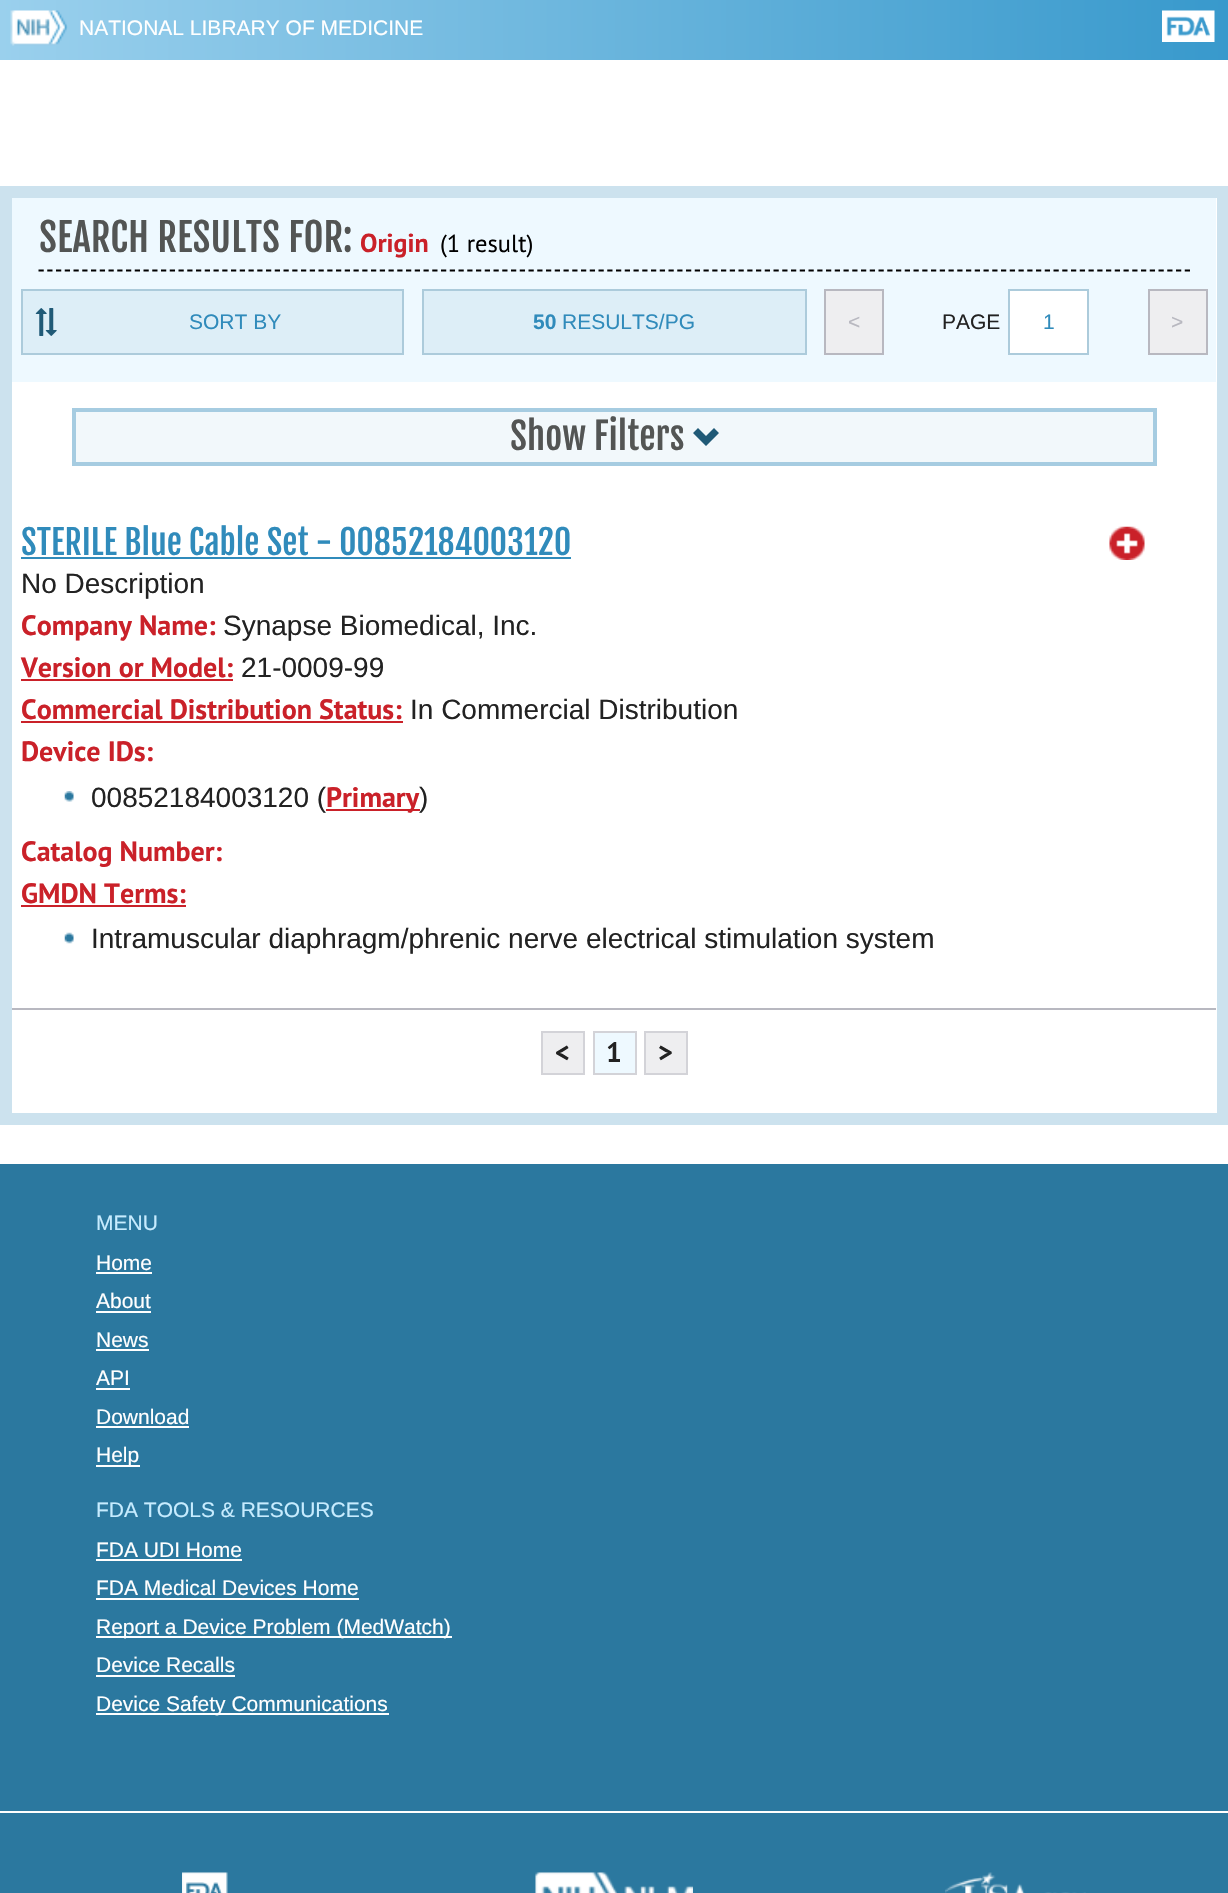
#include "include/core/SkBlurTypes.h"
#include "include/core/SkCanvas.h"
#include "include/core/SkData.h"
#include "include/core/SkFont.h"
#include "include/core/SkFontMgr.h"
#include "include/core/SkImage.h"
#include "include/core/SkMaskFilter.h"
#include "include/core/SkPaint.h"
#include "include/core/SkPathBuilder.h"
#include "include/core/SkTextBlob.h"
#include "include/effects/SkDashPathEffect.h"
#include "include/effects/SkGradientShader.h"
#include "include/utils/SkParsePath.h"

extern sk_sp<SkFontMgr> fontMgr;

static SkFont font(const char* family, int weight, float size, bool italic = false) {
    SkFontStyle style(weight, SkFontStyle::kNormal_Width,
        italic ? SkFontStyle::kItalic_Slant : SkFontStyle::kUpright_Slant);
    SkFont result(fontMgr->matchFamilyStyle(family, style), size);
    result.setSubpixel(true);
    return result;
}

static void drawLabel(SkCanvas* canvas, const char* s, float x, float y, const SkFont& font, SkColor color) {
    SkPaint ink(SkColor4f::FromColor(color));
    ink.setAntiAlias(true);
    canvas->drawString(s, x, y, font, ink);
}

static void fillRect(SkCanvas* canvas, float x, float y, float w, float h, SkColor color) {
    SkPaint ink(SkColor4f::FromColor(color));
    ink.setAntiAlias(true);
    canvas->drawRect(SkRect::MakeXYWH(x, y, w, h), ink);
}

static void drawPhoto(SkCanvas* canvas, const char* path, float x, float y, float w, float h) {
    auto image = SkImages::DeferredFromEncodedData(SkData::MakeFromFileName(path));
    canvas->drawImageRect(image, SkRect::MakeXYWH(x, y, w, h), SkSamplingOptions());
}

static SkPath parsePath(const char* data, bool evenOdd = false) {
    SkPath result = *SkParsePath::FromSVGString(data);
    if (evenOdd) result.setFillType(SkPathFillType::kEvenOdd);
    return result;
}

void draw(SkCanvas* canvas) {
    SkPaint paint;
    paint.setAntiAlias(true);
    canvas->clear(0xFFFFFFFF);
    {
        const SkColor colors[] = {0xFF9AD0ED, 0xFF3899CC};
        const float stops[] = {0, 1};
        const SkPoint ends[] = {{0, 25}, {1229, 25}};
        paint.setShader(SkGradientShader::MakeLinear(ends, colors, stops, 2, SkTileMode::kClamp));
        paint.setAlpha(255);
    }
    canvas->drawRect(SkRect::MakeXYWH(0, 0, 1228, 60), paint);
    drawPhoto(canvas, "assets/img1.png", 10, 10, 58, 36);
    SkFont font1 = font("Liberation Sans", 400, 21);
    drawLabel(canvas, "NATIONAL LIBRARY OF MEDICINE", 79, 35, font1, 0xFFFFFFFF);
    drawPhoto(canvas, "assets/img2.png", 1162, 10, 53, 32);
    paint.setStroke(true);
    paint.setStrokeWidth(12);
    paint.setShader(nullptr);
    paint.setColor(0xFFCCE2EE);
    canvas->drawRect(SkRect::MakeXYWH(6, 192, 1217, 927), paint);
    fillRect(canvas, 12, 198, 1204, 184, 0xFFEEF9FF);
    paint.setStrokeWidth(1.8f);
    paint.setColor(0xFF000000);
    paint.setPathEffect(SkDashPathEffect::Make({{5.25f, 3.5f}}, 0));
    canvas->drawPath(parsePath("M38.5 270.5H1190"), paint);
    paint.setPathEffect(nullptr);
    SkFont font2 = font("Fjalla One", 400, 38.5f);
    drawLabel(canvas, "SEARCH RESULTS FOR:", 39, 252, font2, 0xFF535554);
    SkFont font3 = font("PT Sans", 700, 26);
    drawLabel(canvas, "Origin", 360, 252, font3, 0xFFCA2129);
    SkFont font4 = font("PT Sans", 400, 24.5f);
    drawLabel(canvas, "(1 result)", 440, 252, font4, 0xFF000000);
    fillRect(canvas, 23, 291, 379, 62, 0xFFDDEEF7);
    drawPhoto(canvas, "assets/img3.png", 35, 308, 22, 28);
    paint.setStrokeWidth(2);
    paint.setColor(0xFFACCBDB);
    canvas->drawRect(SkRect::MakeXYWH(22, 290, 381, 64), paint);
    drawLabel(canvas, "SORT BY", 189, 329, font1, 0xFF308BBB);
    paint.setStroke(false);
    paint.setColor(0xFFDDEEF7);
    canvas->drawRect(SkRect::MakeXYWH(423, 290, 383, 64), paint);
    paint.setStroke(true);
    paint.setColor(0xFFACCBDB);
    canvas->drawRect(SkRect::MakeXYWH(423, 290, 383, 64), paint);
    SkFont font5 = font("Liberation Sans", 700, 21);
    drawLabel(canvas, "50", 533, 329, font5, 0xFF308BBB);
    drawLabel(canvas, "RESULTS/PG", 562, 329, font1, 0xFF308BBB);
    paint.setStroke(false);
    paint.setColor(0xFFEEEEF0);
    canvas->drawRect(SkRect::MakeXYWH(825, 290, 58, 64), paint);
    paint.setStroke(true);
    paint.setColor(0xFFB8B8C0);
    canvas->drawRect(SkRect::MakeXYWH(825, 290, 58, 64), paint);
    drawLabel(canvas, "<", 848, 329, font1, 0xFFB8B8C0);
    drawLabel(canvas, "PAGE", 942, 329, font1, 0xFF222222);
    paint.setStroke(false);
    paint.setColor(0xFFFFFFFF);
    canvas->drawRect(SkRect::MakeXYWH(1009, 290, 79, 64), paint);
    paint.setStroke(true);
    paint.setColor(0xFFACCBDB);
    canvas->drawRect(SkRect::MakeXYWH(1009, 290, 79, 64), paint);
    drawLabel(canvas, "1", 1043, 329, font1, 0xFF308BBB);
    paint.setStroke(false);
    paint.setColor(0xFFEEEEF0);
    canvas->drawRect(SkRect::MakeXYWH(1149, 290, 58, 64), paint);
    paint.setStroke(true);
    paint.setColor(0xFFB8B8C0);
    canvas->drawRect(SkRect::MakeXYWH(1149, 290, 58, 64), paint);
    drawLabel(canvas, ">", 1171, 329, font1, 0xFFB8B8C0);
    paint.setStroke(false);
    paint.setColor(0xFFF2F8FB);
    canvas->drawRect(SkRect::MakeXYWH(74, 410, 1081, 54), paint);
    paint.setStroke(true);
    paint.setStrokeWidth(4);
    paint.setColor(0xFFA6CCE1);
    canvas->drawRect(SkRect::MakeXYWH(74, 410, 1081, 54), paint);
    SkFont font6 = font("Fjalla One", 400, 36.5f);
    drawLabel(canvas, "Show Filters", 510, 450, font6, 0xFF535554);
    paint.setStroke(false);
    paint.setColor(0xFF205A77);
    canvas->drawPath(parsePath("M714 428L706 436L698 428L693 433L706 446L719 433Z"), paint);
    fillRect(canvas, 12, 1008, 1204, 2, 0xFFB8B8C0);
    SkFont font7 = font("Fjalla One", 400, 33.6f);
    drawLabel(canvas, "STERILE Blue Cable Set - 00852184003120", 21, 555, font7, 0xFF308BBB);
    fillRect(canvas, 21, 557, 550, 2, 0xFF308BBB);
    drawPhoto(canvas, "assets/img4.png", 1109, 526, 36, 34);
    SkFont font8 = font("Liberation Sans", 400, 28);
    drawLabel(canvas, "No Description", 21, 593, font8, 0xFF222222);
    SkFont font9 = font("PT Sans", 700, 28);
    drawLabel(canvas, "Company Name:", 21, 635, font9, 0xFFCA2129);
    drawLabel(canvas, "Synapse Biomedical, Inc.", 223, 635, font8, 0xFF222222);
    drawLabel(canvas, "Version or Model:", 21, 677, font9, 0xFFCA2129);
    fillRect(canvas, 21, 679, 212, 2, 0xFFCA2129);
    drawLabel(canvas, "21-0009-99", 241, 677, font8, 0xFF222222);
    drawLabel(canvas, "Commercial Distribution Status:", 21, 719, font9, 0xFFCA2129);
    fillRect(canvas, 21, 721, 382, 2, 0xFFCA2129);
    drawLabel(canvas, "In Commercial Distribution", 410, 719, font8, 0xFF222222);
    drawLabel(canvas, "Device IDs:", 21, 761, font9, 0xFFCA2129);
    drawPhoto(canvas, "assets/img5.png", 64, 791, 10, 11);
    drawLabel(canvas, "00852184003120 (", 91, 807, font8, 0xFF222222);
    fillRect(canvas, 326, 809, 94, 2, 0xFFCA2129);
    drawLabel(canvas, "Primary", 326, 807, font9, 0xFFCA2129);
    drawLabel(canvas, ")", 419, 807, font8, 0xFF222222);
    drawLabel(canvas, "Catalog Number:", 21, 861, font9, 0xFFCA2129);
    drawLabel(canvas, "GMDN Terms:", 21, 903, font9, 0xFFCA2129);
    fillRect(canvas, 21, 905, 165, 2, 0xFFCA2129);
    drawPhoto(canvas, "assets/img6.png", 64, 932, 10, 12);
    drawLabel(canvas, "Intramuscular diaphragm/phrenic nerve electrical stimulation system", 91, 948, font8, 0xFF222222);
    paint.setColor(0xFFEEEEF0);
    canvas->drawRect(SkRect::MakeXYWH(542, 1032, 42, 42), paint);
    paint.setStroke(true);
    paint.setStrokeWidth(2);
    paint.setColor(0xFFD3D3D8);
    canvas->drawRect(SkRect::MakeXYWH(542, 1032, 42, 42), paint);
    drawLabel(canvas, "<", 555, 1062, font9, 0xFF222222);
    paint.setStroke(false);
    paint.setColor(0xFFEEF9FF);
    canvas->drawRect(SkRect::MakeXYWH(594, 1032, 42, 42), paint);
    paint.setStroke(true);
    paint.setColor(0xFFD3D3D8);
    canvas->drawRect(SkRect::MakeXYWH(594, 1032, 42, 42), paint);
    drawLabel(canvas, "1", 606, 1062, font9, 0xFF222222);
    paint.setStroke(false);
    paint.setColor(0xFFEEEEF0);
    canvas->drawRect(SkRect::MakeXYWH(645, 1032, 42, 42), paint);
    paint.setStroke(true);
    paint.setColor(0xFFD3D3D8);
    canvas->drawRect(SkRect::MakeXYWH(645, 1032, 42, 42), paint);
    drawLabel(canvas, ">", 658, 1062, font9, 0xFF222222);
    fillRect(canvas, 0, 1164, 1228, 647, 0xFF2B789F);
    drawLabel(canvas, "MENU", 96, 1230, font1, 0xFFC7ECFF);
    drawLabel(canvas, "Home", 96, 1270, font1, 0xFFFFFFFF);
    fillRect(canvas, 96, 1272, 56, 2, 0xFFFFFFFF);
    drawLabel(canvas, "About", 96, 1308, font1, 0xFFFFFFFF);
    fillRect(canvas, 96, 1311, 55, 2, 0xFFFFFFFF);
    drawLabel(canvas, "News", 96, 1347, font1, 0xFFFFFFFF);
    fillRect(canvas, 96, 1349, 53, 2, 0xFFFFFFFF);
    drawLabel(canvas, "API", 96, 1385, font1, 0xFFFFFFFF);
    fillRect(canvas, 96, 1388, 34, 2, 0xFFFFFFFF);
    drawLabel(canvas, "Download", 96, 1424, font1, 0xFFFFFFFF);
    fillRect(canvas, 96, 1426, 93, 2, 0xFFFFFFFF);
    fillRect(canvas, 96, 1465, 44, 2, 0xFFFFFFFF);
    drawLabel(canvas, "Help", 96, 1462, font1, 0xFFFFFFFF);
    drawLabel(canvas, "FDA TOOLS & RESOURCES", 96, 1517, font1, 0xFFC7ECFF);
    drawLabel(canvas, "FDA UDI Home", 96, 1557, font1, 0xFFFFFFFF);
    fillRect(canvas, 96, 1559, 146, 2, 0xFFFFFFFF);
    drawLabel(canvas, "FDA Medical Devices Home", 96, 1595, font1, 0xFFFFFFFF);
    fillRect(canvas, 96, 1598, 263, 2, 0xFFFFFFFF);
    fillRect(canvas, 96, 1636, 356, 2, 0xFFFFFFFF);
    drawLabel(canvas, "Report a Device Problem (MedWatch)", 96, 1634, font1, 0xFFFFFFFF);
    drawLabel(canvas, "Device Recalls", 96, 1672, font1, 0xFFFFFFFF);
    fillRect(canvas, 96, 1675, 139, 2, 0xFFFFFFFF);
    fillRect(canvas, 96, 1713, 293, 2, 0xFFFFFFFF);
    drawLabel(canvas, "Device Safety Communications", 96, 1711, font1, 0xFFFFFFFF);
    fillRect(canvas, 0, 1813, 1228, 80, 0xFF2B789F);
    drawPhoto(canvas, "assets/img7.png", 182, 1872, 46, 21);
    drawPhoto(canvas, "assets/img8.png", 535, 1872, 158, 21);
    drawPhoto(canvas, "assets/img9.png", 945, 1872, 141, 21);
}
